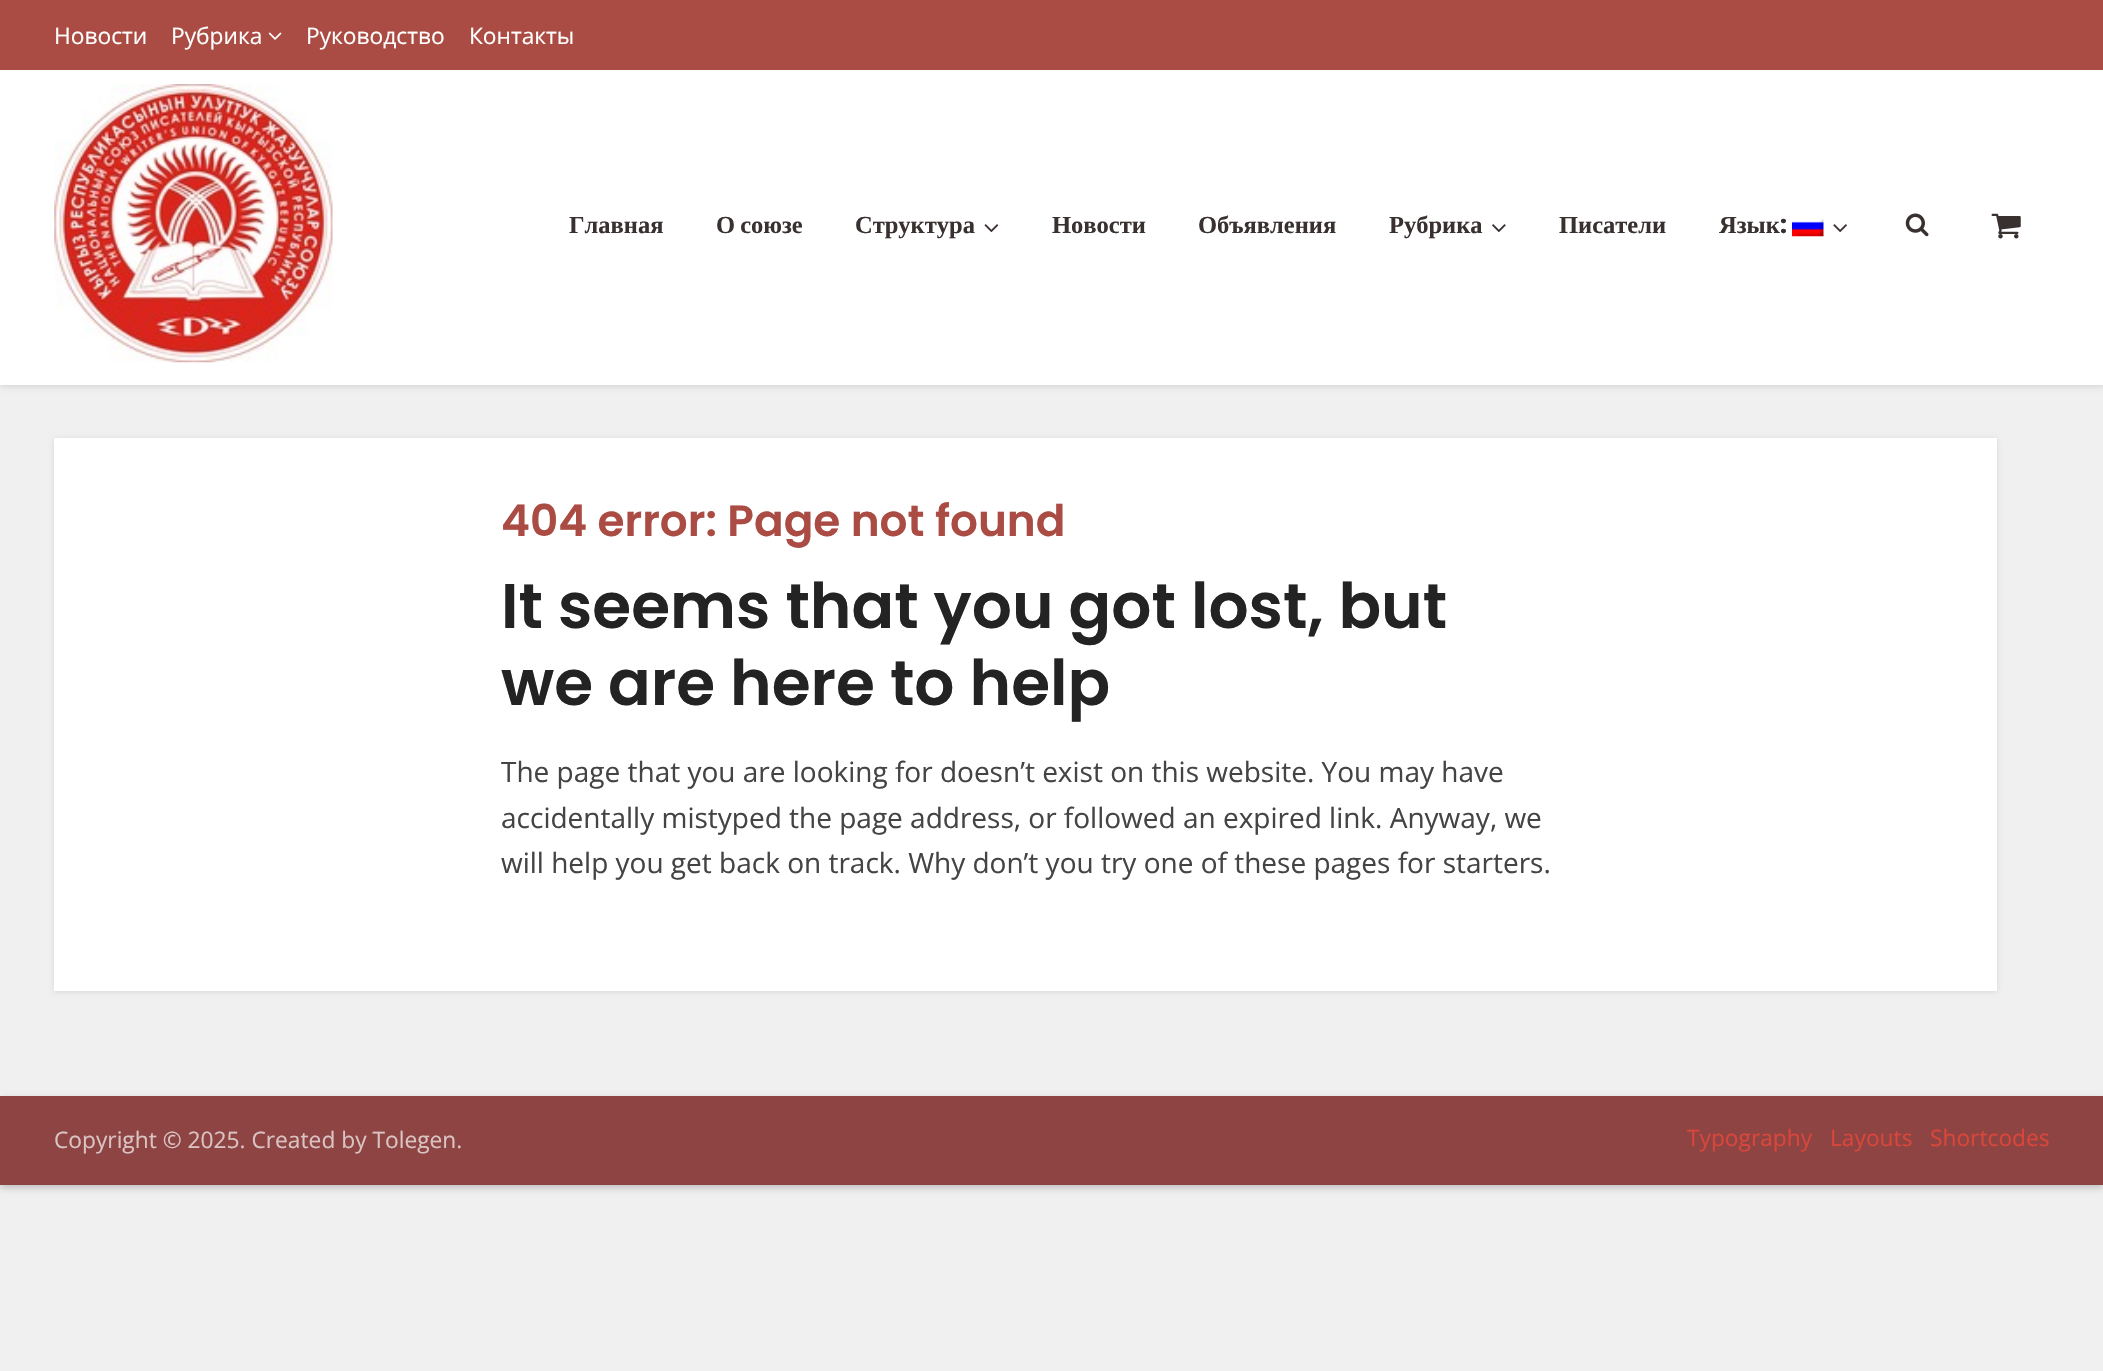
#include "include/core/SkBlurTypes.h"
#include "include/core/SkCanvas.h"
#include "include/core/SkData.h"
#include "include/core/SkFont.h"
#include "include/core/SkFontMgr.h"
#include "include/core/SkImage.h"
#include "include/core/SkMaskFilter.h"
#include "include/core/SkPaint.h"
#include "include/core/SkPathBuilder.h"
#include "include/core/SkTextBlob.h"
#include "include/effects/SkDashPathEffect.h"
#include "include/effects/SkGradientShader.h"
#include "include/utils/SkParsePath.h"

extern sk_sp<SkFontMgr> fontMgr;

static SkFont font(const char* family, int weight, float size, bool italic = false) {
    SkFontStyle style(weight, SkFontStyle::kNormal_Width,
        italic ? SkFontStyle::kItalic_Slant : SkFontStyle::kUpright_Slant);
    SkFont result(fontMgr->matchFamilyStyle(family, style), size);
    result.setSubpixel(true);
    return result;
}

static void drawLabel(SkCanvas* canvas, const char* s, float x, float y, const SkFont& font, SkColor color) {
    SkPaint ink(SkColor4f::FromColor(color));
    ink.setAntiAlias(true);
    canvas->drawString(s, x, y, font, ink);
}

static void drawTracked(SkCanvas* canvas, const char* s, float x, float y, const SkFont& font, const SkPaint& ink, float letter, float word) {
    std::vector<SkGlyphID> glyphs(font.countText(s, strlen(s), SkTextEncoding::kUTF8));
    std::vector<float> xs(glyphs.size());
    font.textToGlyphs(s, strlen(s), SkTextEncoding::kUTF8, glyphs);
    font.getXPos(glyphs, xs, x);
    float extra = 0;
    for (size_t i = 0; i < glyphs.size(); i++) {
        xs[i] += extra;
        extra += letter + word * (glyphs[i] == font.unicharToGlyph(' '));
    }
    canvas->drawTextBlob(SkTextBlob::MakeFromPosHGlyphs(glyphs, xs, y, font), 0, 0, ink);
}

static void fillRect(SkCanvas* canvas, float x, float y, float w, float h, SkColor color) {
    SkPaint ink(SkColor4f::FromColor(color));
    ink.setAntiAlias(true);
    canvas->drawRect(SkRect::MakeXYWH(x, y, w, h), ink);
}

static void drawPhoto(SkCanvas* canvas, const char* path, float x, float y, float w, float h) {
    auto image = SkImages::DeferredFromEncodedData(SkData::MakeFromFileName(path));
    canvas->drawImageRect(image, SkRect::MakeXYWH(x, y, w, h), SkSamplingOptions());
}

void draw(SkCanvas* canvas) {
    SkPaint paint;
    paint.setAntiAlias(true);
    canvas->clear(0xFFF0F0F0);
    paint.setColor(0x1A000000);
    paint.setMaskFilter(SkMaskFilter::MakeBlur(kNormal_SkBlurStyle, 2.5f));
    canvas->drawRect(SkRect::MakeXYWH(0, 2, 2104, 385), paint);
    paint.setMaskFilter(nullptr);
    fillRect(canvas, 0, 70, 2103, 315, 0xFFFFFFFF);
    fillRect(canvas, 0, 0, 2103, 70, 0xFFAA4C43);
    SkFont font1 = font("Open Sans", 400, 22.75f);
    drawLabel(canvas, "Новости", 54, 44, font1, 0xFFFFFFFF);
    drawLabel(canvas, "Рубрика", 171, 44, font1, 0xFFFFFFFF);
    drawPhoto(canvas, "assets/img1.png", 268, 32, 14, 8);
    drawLabel(canvas, "Руководство", 306, 44, font1, 0xFFFFFFFF);
    drawLabel(canvas, "Контакты", 469, 44, font1, 0xFFFFFFFF);
    drawPhoto(canvas, "assets/img2.png", 54, 84, 279, 279);
    SkFont font2 = font("Liberation Serif", 700, 24.5f);
    drawLabel(canvas, "Главная", 569, 233, font2, 0xFF393030);
    paint.setColor(0xFF393030);
    drawTracked(canvas, "О союзе", 716, 233, font2, paint, 0, -1);
    drawLabel(canvas, "Структура", 855, 233, font2, 0xFF393030);
    drawPhoto(canvas, "assets/img3.png", 984, 224, 15, 9);
    drawLabel(canvas, "Новости", 1052, 233, font2, 0xFF393030);
    drawLabel(canvas, "Объявления", 1198, 233, font2, 0xFF393030);
    drawLabel(canvas, "Рубрика", 1389, 233, font2, 0xFF393030);
    drawPhoto(canvas, "assets/img4.png", 1492, 224, 14, 9);
    drawLabel(canvas, "Писатели", 1559, 233, font2, 0xFF393030);
    drawLabel(canvas, "Язык", 1719, 233, font2, 0xFF393030);
    SkFont font3 = font("Poppins", 700, 24.5f);
    drawLabel(canvas, ":", 1780, 233, font3, 0xFF393030);
    drawPhoto(canvas, "assets/img5.png", 1792, 218, 32, 19);
    drawPhoto(canvas, "assets/img6.png", 1833, 224, 14, 9);
    drawPhoto(canvas, "assets/img7.png", 1905, 213, 24, 24);
    drawPhoto(canvas, "assets/img8.png", 1991, 213, 30, 26);
    paint.setColor(0x1A000000);
    paint.setMaskFilter(SkMaskFilter::MakeBlur(kNormal_SkBlurStyle, 2.5f));
    canvas->drawRect(SkRect::MakeXYWH(54, 439, 1943, 553), paint);
    paint.setMaskFilter(nullptr);
    fillRect(canvas, 54, 438, 1943, 553, 0xFFFFFFFF);
    SkFont font4 = font("Poppins", 600, 43.75f);
    drawLabel(canvas, "404 error: Page not found", 501, 536, font4, 0xFFAA4C43);
    SkFont font5 = font("Poppins", 600, 63);
    drawLabel(canvas, "It seems that you got lost, but", 501, 628, font5, 0xFF232323);
    drawLabel(canvas, "we are here to help", 501, 705, font5, 0xFF232323);
    SkFont font6 = font("Open Sans", 400, 28);
    drawLabel(canvas, "The page that you are looking for doesn’t exist on this website. You may have", 501, 782, font6, 0xFF444444);
    drawLabel(canvas, "accidentally mistyped the page address, or followed an expired link. Anyway, we", 501, 828, font6, 0xFF444444);
    drawLabel(canvas, "will help you get back on track. Why don’t you try one of these pages for starters.", 501, 873, font6, 0xFF444444);
    paint.setColor(0x33000000);
    paint.setMaskFilter(SkMaskFilter::MakeBlur(kNormal_SkBlurStyle, 3.5f));
    canvas->drawRect(SkRect::MakeXYWH(0, 1099, 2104, 89), paint);
    paint.setMaskFilter(nullptr);
    fillRect(canvas, 0, 1096, 2103, 89, 0xFF8F4444);
    drawLabel(canvas, "Copyright © 2025. Created by Tolegen.", 54, 1148, font1, 0xFFD9C3C3);
    drawLabel(canvas, "Typography", 1687, 1146, font1, 0xFFDA463A);
    drawLabel(canvas, "Layouts", 1830, 1146, font1, 0xFFDA463A);
    drawLabel(canvas, "Shortcodes", 1930, 1146, font1, 0xFFDA463A);
}
